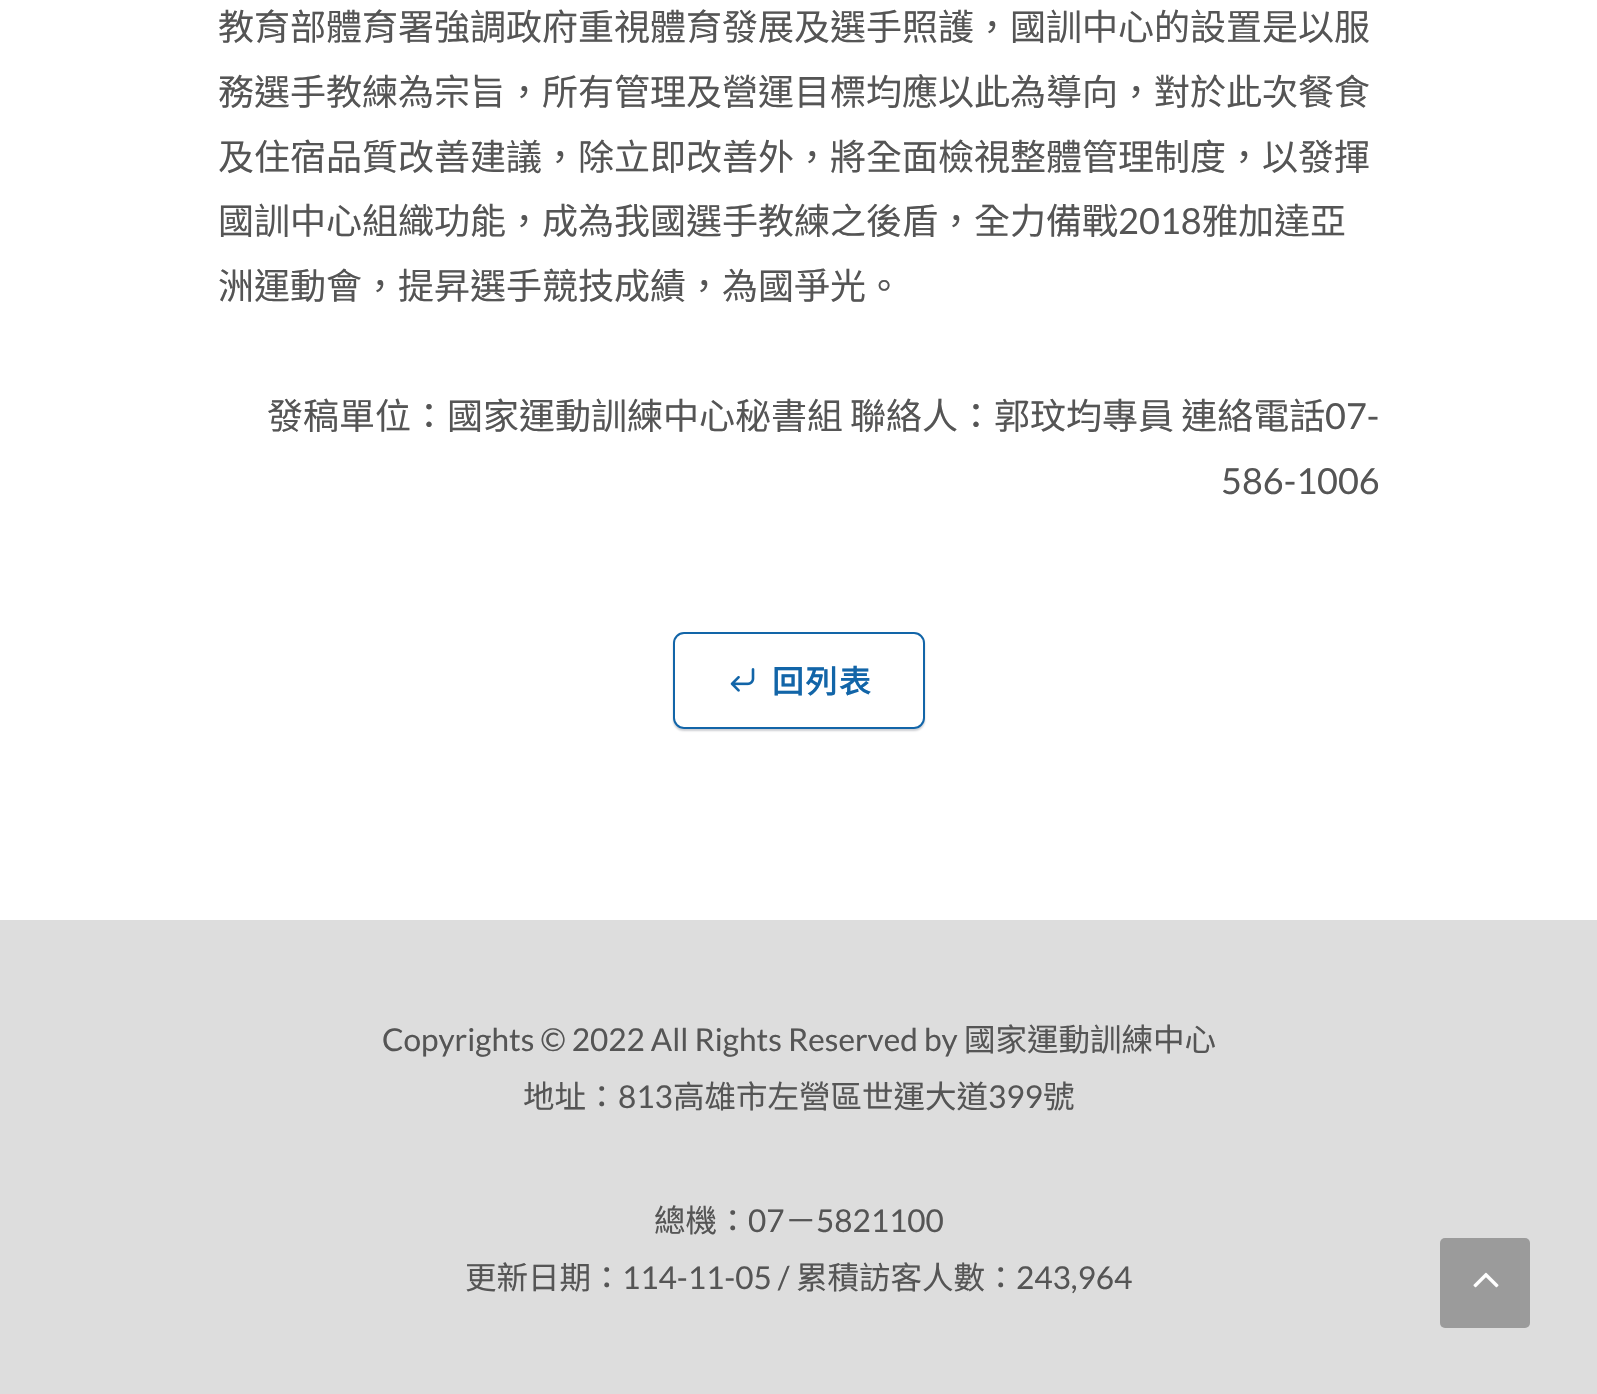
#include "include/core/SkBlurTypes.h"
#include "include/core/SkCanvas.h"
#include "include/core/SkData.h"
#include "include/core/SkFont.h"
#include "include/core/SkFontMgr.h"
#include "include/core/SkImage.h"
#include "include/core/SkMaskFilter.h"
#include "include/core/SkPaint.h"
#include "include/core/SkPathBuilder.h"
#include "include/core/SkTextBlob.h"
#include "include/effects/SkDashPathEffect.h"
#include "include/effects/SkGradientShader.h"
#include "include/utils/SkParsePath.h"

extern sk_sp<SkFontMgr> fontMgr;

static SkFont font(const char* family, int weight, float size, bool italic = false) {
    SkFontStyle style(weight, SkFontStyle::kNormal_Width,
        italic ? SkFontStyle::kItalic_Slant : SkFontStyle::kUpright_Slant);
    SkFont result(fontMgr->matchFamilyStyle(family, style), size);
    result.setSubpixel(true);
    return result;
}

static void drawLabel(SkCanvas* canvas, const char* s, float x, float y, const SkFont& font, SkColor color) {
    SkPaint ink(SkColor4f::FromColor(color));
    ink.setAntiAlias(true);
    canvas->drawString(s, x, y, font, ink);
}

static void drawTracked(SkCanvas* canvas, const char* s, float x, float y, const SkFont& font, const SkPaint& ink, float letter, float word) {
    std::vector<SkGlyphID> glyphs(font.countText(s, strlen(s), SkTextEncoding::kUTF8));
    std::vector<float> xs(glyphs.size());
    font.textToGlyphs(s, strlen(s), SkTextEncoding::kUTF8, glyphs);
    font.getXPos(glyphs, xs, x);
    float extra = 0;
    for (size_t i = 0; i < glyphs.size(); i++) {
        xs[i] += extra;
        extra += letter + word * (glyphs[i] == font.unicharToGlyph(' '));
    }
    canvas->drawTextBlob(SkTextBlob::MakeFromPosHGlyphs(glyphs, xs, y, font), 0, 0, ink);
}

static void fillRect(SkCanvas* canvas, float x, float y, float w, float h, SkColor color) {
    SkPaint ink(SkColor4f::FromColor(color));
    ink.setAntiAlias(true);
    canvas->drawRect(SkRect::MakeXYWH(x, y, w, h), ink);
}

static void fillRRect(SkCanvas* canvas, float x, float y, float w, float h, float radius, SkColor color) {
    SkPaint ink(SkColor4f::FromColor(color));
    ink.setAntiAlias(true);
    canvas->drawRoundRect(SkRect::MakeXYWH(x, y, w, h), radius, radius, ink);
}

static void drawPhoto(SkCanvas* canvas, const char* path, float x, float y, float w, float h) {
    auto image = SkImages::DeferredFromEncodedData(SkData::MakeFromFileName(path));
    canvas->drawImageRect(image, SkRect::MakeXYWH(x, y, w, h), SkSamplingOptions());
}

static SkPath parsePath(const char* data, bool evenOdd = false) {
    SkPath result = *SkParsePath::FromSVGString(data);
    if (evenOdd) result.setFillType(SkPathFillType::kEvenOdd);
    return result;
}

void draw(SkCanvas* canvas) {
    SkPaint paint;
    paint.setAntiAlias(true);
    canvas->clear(0xFFFFFFFF);
    SkFont font1 = font("Noto Sans CJK TC", 400, 36);
    drawLabel(canvas, "教育部體育署強調政府重視體育發展及選手照護，國訓中心的設置是以服", 218, 40, font1, 0xFF555555);
    drawLabel(canvas, "務選手教練為宗旨，所有管理及營運目標均應以此為導向，對於此次餐食", 218, 105, font1, 0xFF555555);
    drawLabel(canvas, "及住宿品質改善建議，除立即改善外，將全面檢視整體管理制度，以發揮", 218, 170, font1, 0xFF555555);
    drawLabel(canvas, "國訓中心組織功能，成為我國選手教練之後盾，全力備戰", 218, 234, font1, 0xFF555555);
    SkFont font2 = font("Lato", 400, 36);
    drawLabel(canvas, "2018", 1118, 234, font2, 0xFF555555);
    drawLabel(canvas, "雅加達亞", 1202, 234, font1, 0xFF555555);
    drawLabel(canvas, "洲運動會，提昇選手競技成績，為國爭光。", 218, 299, font1, 0xFF555555);
    paint.setColor(0xFF555555);
    drawTracked(canvas, "發稿單位：國家運動訓練中心秘書組 聯絡人：郭玟均專員 連絡電話", 267, 429, font1, paint, 0, -1);
    drawLabel(canvas, "07-", 1325, 429, font2, 0xFF555555);
    drawLabel(canvas, "586-1006", 1221, 494, font2, 0xFF555555);
    canvas->save();
    canvas->clipPath(parsePath("M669 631H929V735H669ZM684 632H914C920 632 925 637 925 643V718C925 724 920 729 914 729H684C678 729 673 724 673 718V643C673 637 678 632 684 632Z", true), true);
    paint.setColor(0x330A1022);
    paint.setMaskFilter(SkMaskFilter::MakeBlur(kNormal_SkBlurStyle, 1));
    canvas->drawRoundRect(SkRect::MakeXYWH(673, 635, 252, 96), 11, 11, paint);
    paint.setMaskFilter(nullptr);
    canvas->restore();
    paint.setStroke(true);
    paint.setStrokeWidth(2);
    paint.setColor(0xFF1265A8);
    canvas->drawRoundRect(SkRect::MakeXYWH(674, 633, 250, 95), 10, 10, paint);
    drawPhoto(canvas, "assets/img1.png", 730, 668, 25, 24);
    SkFont font3 = font("Noto Sans CJK TC", 700, 31.5f);
    paint.setStroke(false);
    drawTracked(canvas, "回列表", 772, 693, font3, paint, 2, 0);
    fillRect(canvas, 0, 920, 1597, 474, 0xFFDDDDDD);
    SkFont font4 = font("Lato", 400, 31.5f);
    drawLabel(canvas, "Copyrights © 2022 All Rights Reserved by", 382, 1051, font4, 0xFF555555);
    SkFont font5 = font("Noto Sans CJK TC", 400, 31.5f);
    drawLabel(canvas, "國家運動訓練中心", 964, 1051, font5, 0xFF555555);
    drawLabel(canvas, "地址：", 523, 1108, font5, 0xFF555555);
    drawLabel(canvas, "813", 618, 1108, font4, 0xFF555555);
    drawLabel(canvas, "高雄市左營區世運大道", 673, 1108, font5, 0xFF555555);
    drawLabel(canvas, "399", 988, 1108, font4, 0xFF555555);
    drawLabel(canvas, "號", 1043, 1108, font5, 0xFF555555);
    drawLabel(canvas, "總機：", 654, 1232, font5, 0xFF555555);
    drawLabel(canvas, "07", 748, 1232, font4, 0xFF555555);
    drawLabel(canvas, "－", 785, 1232, font5, 0xFF555555);
    drawLabel(canvas, "5821100", 816, 1232, font4, 0xFF555555);
    drawLabel(canvas, "更新日期：", 465, 1289, font5, 0xFF555555);
    drawLabel(canvas, "114-11-05 /", 622, 1289, font4, 0xFF555555);
    drawLabel(canvas, "累積訪客人數：", 796, 1289, font5, 0xFF555555);
    drawLabel(canvas, "243,964", 1016, 1289, font4, 0xFF555555);
    fillRRect(canvas, 1440, 1238, 90, 90, 5, 0xFF9B9B9B);
    drawPhoto(canvas, "assets/img2.png", 1473, 1272, 26, 16);
}
